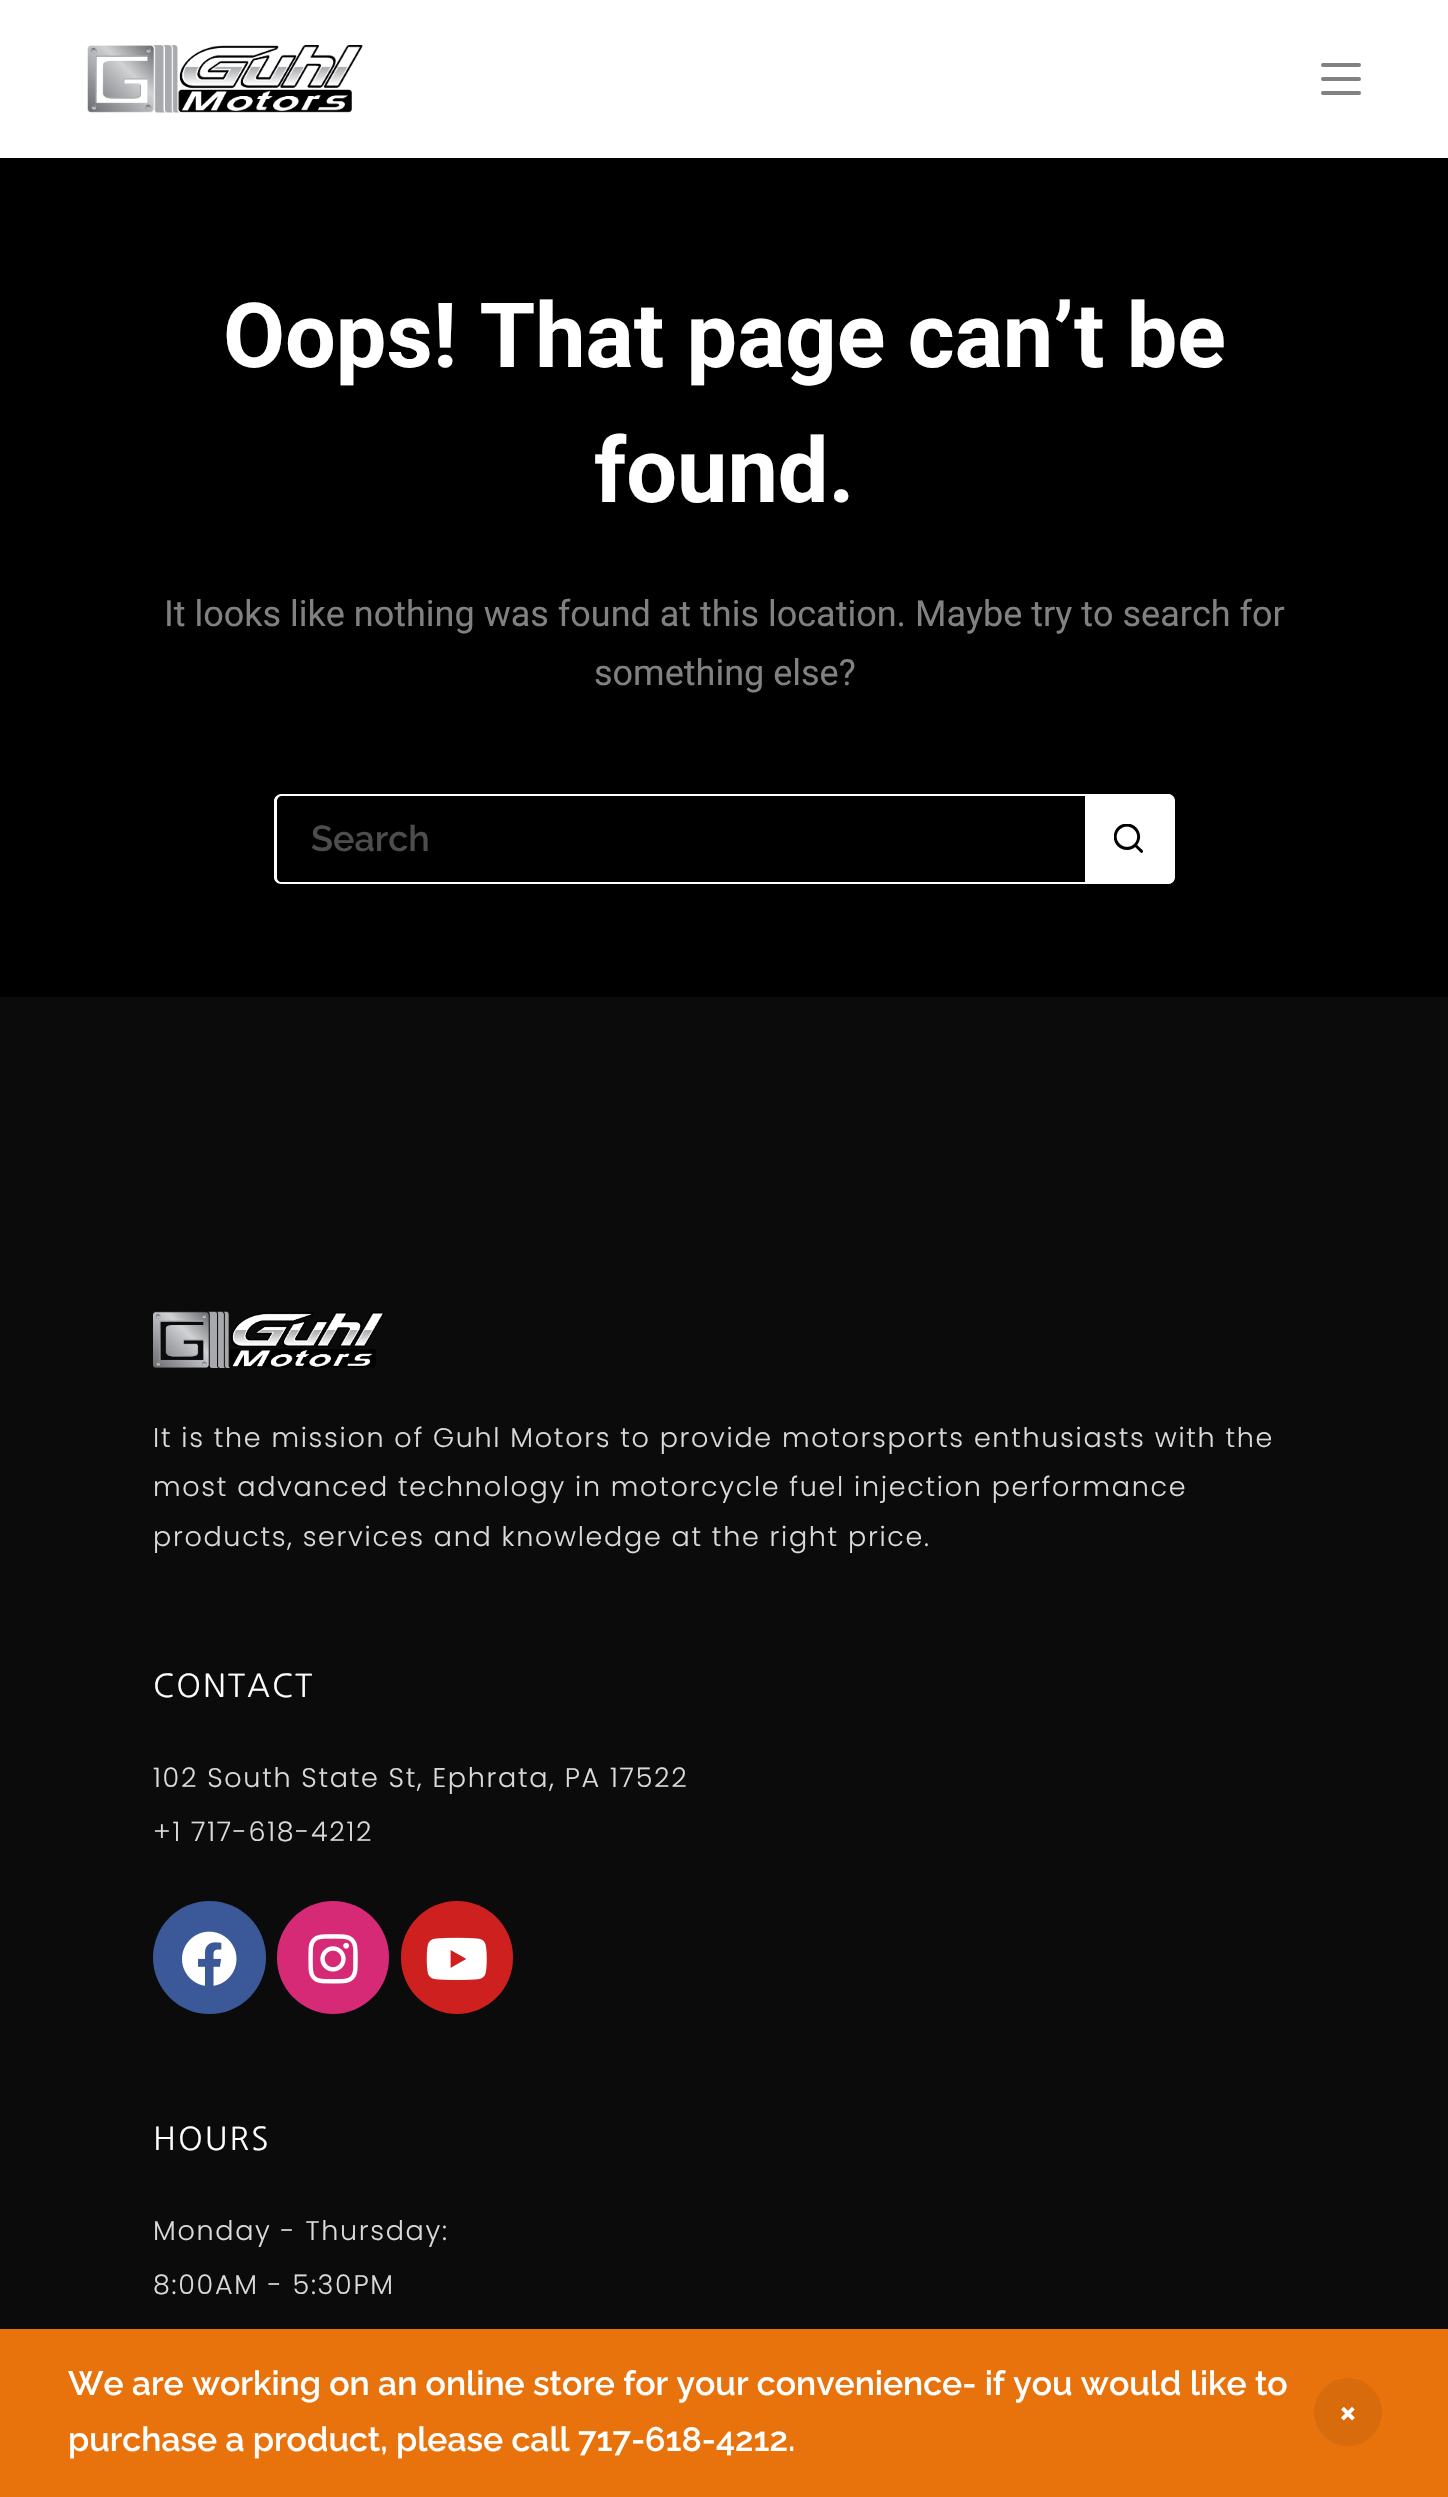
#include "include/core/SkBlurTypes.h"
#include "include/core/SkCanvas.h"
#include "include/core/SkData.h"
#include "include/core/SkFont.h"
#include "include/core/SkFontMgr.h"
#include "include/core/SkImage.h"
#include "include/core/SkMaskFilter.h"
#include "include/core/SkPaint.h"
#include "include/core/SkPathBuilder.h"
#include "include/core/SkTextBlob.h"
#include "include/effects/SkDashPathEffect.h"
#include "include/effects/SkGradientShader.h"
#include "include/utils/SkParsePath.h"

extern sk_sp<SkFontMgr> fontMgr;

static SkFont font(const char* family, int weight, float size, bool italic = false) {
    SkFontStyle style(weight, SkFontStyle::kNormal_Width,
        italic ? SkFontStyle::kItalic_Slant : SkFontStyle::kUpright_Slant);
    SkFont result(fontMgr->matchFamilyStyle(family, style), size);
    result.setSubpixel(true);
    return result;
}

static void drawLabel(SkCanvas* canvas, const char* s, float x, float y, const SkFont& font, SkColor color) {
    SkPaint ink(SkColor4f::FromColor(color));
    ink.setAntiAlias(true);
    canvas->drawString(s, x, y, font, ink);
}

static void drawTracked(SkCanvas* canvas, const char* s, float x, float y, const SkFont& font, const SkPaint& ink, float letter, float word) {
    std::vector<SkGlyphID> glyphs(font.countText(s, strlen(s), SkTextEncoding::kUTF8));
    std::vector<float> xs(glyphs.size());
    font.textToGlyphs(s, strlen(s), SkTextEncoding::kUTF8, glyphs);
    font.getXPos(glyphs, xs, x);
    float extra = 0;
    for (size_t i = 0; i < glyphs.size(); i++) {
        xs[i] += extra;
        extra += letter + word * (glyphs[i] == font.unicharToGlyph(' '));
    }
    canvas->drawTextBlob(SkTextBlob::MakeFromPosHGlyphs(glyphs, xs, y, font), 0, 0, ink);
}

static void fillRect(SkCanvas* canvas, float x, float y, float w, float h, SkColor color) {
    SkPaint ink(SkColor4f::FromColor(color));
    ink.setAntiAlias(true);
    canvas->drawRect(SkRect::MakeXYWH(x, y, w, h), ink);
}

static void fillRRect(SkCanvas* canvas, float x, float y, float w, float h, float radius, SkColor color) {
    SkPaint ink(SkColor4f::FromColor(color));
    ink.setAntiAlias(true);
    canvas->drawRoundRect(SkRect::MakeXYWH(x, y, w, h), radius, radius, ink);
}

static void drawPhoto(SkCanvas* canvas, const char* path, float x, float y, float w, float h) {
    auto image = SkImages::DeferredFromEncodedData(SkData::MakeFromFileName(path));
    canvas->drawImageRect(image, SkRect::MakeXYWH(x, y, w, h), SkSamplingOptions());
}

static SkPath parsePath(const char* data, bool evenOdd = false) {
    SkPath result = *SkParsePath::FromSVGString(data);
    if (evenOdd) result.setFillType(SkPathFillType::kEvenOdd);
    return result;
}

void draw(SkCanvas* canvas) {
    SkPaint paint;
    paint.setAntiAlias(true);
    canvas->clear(0xFF000000);
    fillRect(canvas, 0, 0, 1448, 158, 0xFFFFFFFF);
    drawPhoto(canvas, "assets/img1.png", 87, 45, 276, 68);
    fillRRect(canvas, 1321, 63, 40, 4, 2, 0xFF818181);
    fillRRect(canvas, 1321, 77, 40, 4, 2, 0xFF818181);
    fillRRect(canvas, 1321, 91, 40, 4, 2, 0xFF818181);
    SkFont font1 = font("Roboto", 700, 90);
    drawLabel(canvas, "Oops! That page can’t be", 223, 367, font1, 0xFFFFFFFF);
    drawLabel(canvas, "found.", 594, 502, font1, 0xFFFFFFFF);
    SkFont font2 = font("Roboto", 400, 36);
    drawLabel(canvas, "It looks like nothing was found at this location. Maybe try to search for", 164, 626, font2, 0xFF818181);
    drawLabel(canvas, "something else?", 594, 685, font2, 0xFF818181);
    paint.setColor(0xFFFFFFFF);
    canvas->drawPath(parsePath("M281 794H1084V884H281C278 884 274 881 274 878V801C274 797 278 794 281 794ZM281 796H1084V882H281C279 882 277 880 277 878V801C277 799 279 796 281 796Z", true), paint);
    SkFont font3 = font("Raleway", 600, 36);
    drawLabel(canvas, "Search", 311, 851, font3, 0xFF4D4D4D);
    canvas->drawPath(parsePath("M1085 794H1168C1172 794 1175 797 1175 801V877C1175 881 1172 884 1168 884H1085Z"), paint);
    canvas->drawPath(parsePath("M1084 794H1168C1171 794 1174 797 1174 801V878C1174 881 1171 884 1168 884H1084ZM1084 796H1168C1170 796 1172 799 1172 801V878C1172 880 1170 882 1168 882H1084Z", true), paint);
    drawPhoto(canvas, "assets/img2.png", 1114, 824, 29, 29);
    fillRect(canvas, 0, 997, 1448, 1332, 0xFF0B0B0B);
    drawPhoto(canvas, "assets/img3.png", 153, 1311, 232, 57);
    SkFont font4 = font("Poppins", 300, 27);
    paint.setColor(0xFFDADADA);
    drawTracked(canvas, "It is the mission of Guhl Motors to provide motorsports enthusiasts with the", 153, 1447, font4, paint, 1.7f, 0);
    drawTracked(canvas, "most advanced technology in motorcycle fuel injection performance", 153, 1496, font4, paint, 1.7f, 0);
    drawTracked(canvas, "products, services and knowledge at the right price.", 153, 1546, font4, paint, 1.7f, 0);
    SkFont font5 = font("NanumGothic", 400, 31.5f);
    paint.setColor(0xFFFFFFFF);
    drawTracked(canvas, "CONTACT", 153, 1697, font5, paint, 2, 0);
    paint.setColor(0xFFDADADA);
    drawTracked(canvas, "102 South State St, Ephrata, PA 17522", 153, 1787, font4, paint, 1.7f, 0);
    drawTracked(canvas, "+1 717-618-4212", 153, 1841, font4, paint, 1.7f, 0);
    paint.setColor(0xFF3B5998);
    canvas->drawCircle(209.5f, 1957.5f, 56.5f, paint);
    drawPhoto(canvas, "assets/img4.png", 182, 1931, 55, 55);
    fillRRect(canvas, 277, 1901, 112, 113, 56, 0xFFD62976);
    drawPhoto(canvas, "assets/img5.png", 308, 1934, 50, 50);
    fillRRect(canvas, 401, 1901, 112, 113, 56, 0xFFCD201F);
    drawPhoto(canvas, "assets/img6.png", 426, 1937, 61, 43);
    paint.setColor(0xFFFFFFFF);
    drawTracked(canvas, "HOURS", 153, 2150, font5, paint, 2, 0);
    paint.setColor(0xFFDADADA);
    drawTracked(canvas, "Monday - Thursday:", 153, 2240, font4, paint, 1.7f, 0);
    drawTracked(canvas, "8:00AM - 5:30PM", 153, 2294, font4, paint, 1.7f, 0);
    fillRect(canvas, 0, 2329, 1448, 168, 0xFFE8730C);
    SkFont font6 = font("Raleway", 600, 33.75f);
    drawLabel(canvas, "We are working on an online store for your convenience- if you would like to", 68, 2395, font6, 0xFFFFFFFF);
    paint.setColor(0xFFD86B0B);
    canvas->drawCircle(1348, 2412, 34, paint);
    SkFont font7 = font("Raleway", 600, 38);
    drawLabel(canvas, "×", 1339, 2424, font7, 0xFFFFFFFF);
    drawLabel(canvas, "purchase a product, please call 717-618-4212.", 68, 2451, font6, 0xFFFFFFFF);
}
